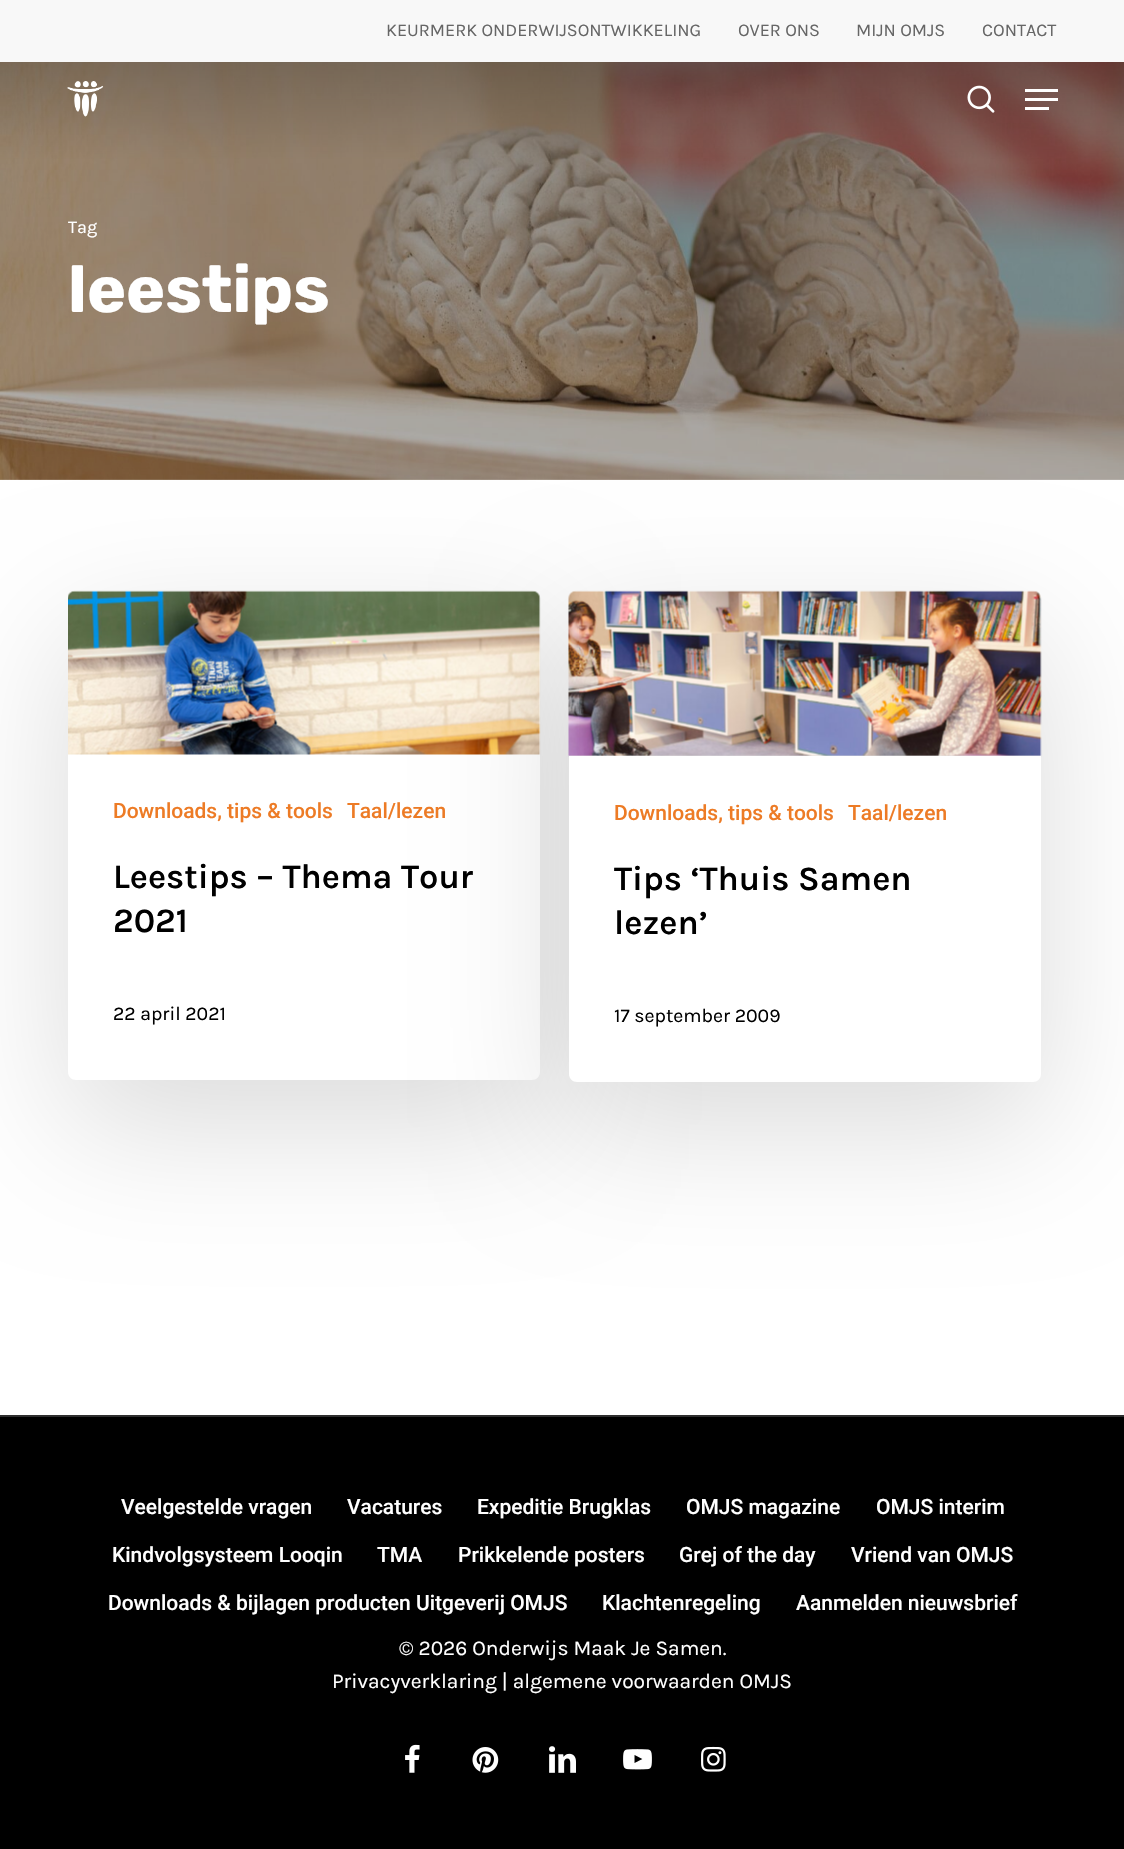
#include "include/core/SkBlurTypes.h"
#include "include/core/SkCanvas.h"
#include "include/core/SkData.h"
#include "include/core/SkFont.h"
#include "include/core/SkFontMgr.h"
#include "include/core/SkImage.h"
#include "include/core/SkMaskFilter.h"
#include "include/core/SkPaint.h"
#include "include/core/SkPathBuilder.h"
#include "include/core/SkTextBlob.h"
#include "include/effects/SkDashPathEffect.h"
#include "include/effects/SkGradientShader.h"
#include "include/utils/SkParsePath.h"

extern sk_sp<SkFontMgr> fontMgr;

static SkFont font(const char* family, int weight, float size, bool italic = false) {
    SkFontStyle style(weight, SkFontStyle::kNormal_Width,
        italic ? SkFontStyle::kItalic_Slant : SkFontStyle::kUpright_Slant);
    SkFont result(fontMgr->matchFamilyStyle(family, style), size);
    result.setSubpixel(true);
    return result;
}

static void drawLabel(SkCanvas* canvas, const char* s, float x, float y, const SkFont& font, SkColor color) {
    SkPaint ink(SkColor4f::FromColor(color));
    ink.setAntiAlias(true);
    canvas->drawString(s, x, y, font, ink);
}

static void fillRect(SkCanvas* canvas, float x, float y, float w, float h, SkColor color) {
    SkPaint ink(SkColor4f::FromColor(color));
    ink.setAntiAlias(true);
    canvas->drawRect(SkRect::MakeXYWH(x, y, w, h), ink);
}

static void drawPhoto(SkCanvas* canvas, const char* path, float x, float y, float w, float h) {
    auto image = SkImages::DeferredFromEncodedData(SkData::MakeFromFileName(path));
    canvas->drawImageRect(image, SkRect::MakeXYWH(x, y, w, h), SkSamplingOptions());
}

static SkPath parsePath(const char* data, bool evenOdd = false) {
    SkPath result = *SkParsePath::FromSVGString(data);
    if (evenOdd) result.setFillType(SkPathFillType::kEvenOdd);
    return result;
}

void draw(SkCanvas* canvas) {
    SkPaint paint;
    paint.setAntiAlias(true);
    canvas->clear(0xFFFFFFFF);
    fillRect(canvas, 0, 0, 1124, 62, 0xFFF8F8F8);
    SkFont font1 = font("Karla", 400, 18);
    drawLabel(canvas, "KEURMERK ONDERWIJSONTWIKKELING", 386, 36, font1, 0xFF666666);
    drawLabel(canvas, "OVER ONS", 738, 36, font1, 0xFF666666);
    drawLabel(canvas, "MIJN OMJS", 856, 36, font1, 0xFF666666);
    drawLabel(canvas, "CONTACT", 982, 36, font1, 0xFF666666);
    drawPhoto(canvas, "assets/img3.png", 0, 62, 1124, 418);
    drawPhoto(canvas, "assets/img1.png", 67, 81, 37, 36);
    drawPhoto(canvas, "assets/img2.png", 967, 85, 28, 28);
    fillRect(canvas, 1025, 89, 33, 3, 0xFFFFFFFF);
    fillRect(canvas, 1025, 107, 24, 3, 0xFFFFFFFF);
    fillRect(canvas, 1025, 98, 33, 3, 0xFFFFFFFF);
    drawLabel(canvas, "Tag", 68, 233, font1, 0xFFFFFFFF);
    SkFont font2 = font("Rubik", 300, 66);
    drawLabel(canvas, "leestips", 68, 312, font2, 0xFFFFFFFF);
    canvas->save();
    canvas->clipPath(parsePath("M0 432H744V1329H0ZM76 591H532C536.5 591 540 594.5 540 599V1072C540 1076.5 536.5 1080 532 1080H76C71.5 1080 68 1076.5 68 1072V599C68 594.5 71.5 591 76 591Z", true), true);
    paint.setColor(0x24000000);
    paint.setMaskFilter(SkMaskFilter::MakeBlur(kNormal_SkBlurStyle, 67.5f));
    canvas->drawRoundRect(SkRect::MakeXYWH(68, 636, 472, 489), 8, 8, paint);
    paint.setMaskFilter(nullptr);
    canvas->restore();
    drawPhoto(canvas, "assets/img4.png", 68, 590, 473, 165);
    SkFont font3 = font("Roboto", 500, 21);
    drawLabel(canvas, "Downloads, tips & tools", 113, 818, font3, 0xFFED7B25);
    drawLabel(canvas, "Taal/lezen", 347, 818, font3, 0xFFED7B25);
    SkFont font4 = font("Karla", 600, 34.5f);
    drawLabel(canvas, "Leestips – Thema Tour", 113, 888, font4, 0xFF000000);
    drawLabel(canvas, "2021", 113, 932, font4, 0xFF000000);
    SkFont font5 = font("Karla", 400, 19.5f);
    drawLabel(canvas, "22 april 2021", 113, 1020, font5, 0xFF000000);
    paint.setMaskFilter(SkMaskFilter::MakeBlur(kNormal_SkBlurStyle, 67.5f));
    canvas->drawRoundRect(SkRect::MakeXYWH(569, 636, 472, 491), 8, 8, paint);
    paint.setMaskFilter(nullptr);
    drawPhoto(canvas, "assets/img5.png", 568, 590, 474, 167);
    fillRect(canvas, 569, 756, 472, 86, 0xFFFFFFFF);
    drawLabel(canvas, "Downloads, tips & tools", 614, 820, font3, 0xFFED7B25);
    drawLabel(canvas, "Taal/lezen", 848, 820, font3, 0xFFED7B25);
    paint.setColor(0xFFFFFFFF);
    canvas->drawPath(parsePath("M569 842H1041V1074C1041 1078.5 1037.5 1082 1033 1082H577C572.5 1082 569 1078.5 569 1074Z"), paint);
    drawLabel(canvas, "Tips ‘Thuis Samen", 614, 890, font4, 0xFF000000);
    drawLabel(canvas, "lezen’", 614, 934, font4, 0xFF000000);
    drawLabel(canvas, "17 september 2009", 614, 1022, font5, 0xFF000000);
    fillRect(canvas, 0, 1417, 1124, 432, 0xFF000000);
    fillRect(canvas, 0, 1415, 1124, 2, 0xFF2E2E2E);
    drawLabel(canvas, "Veelgestelde vragen", 121, 1514, font3, 0xFFFFFFFF);
    drawLabel(canvas, "Vacatures", 347, 1514, font3, 0xFFFFFFFF);
    drawLabel(canvas, "Expeditie Brugklas", 477, 1514, font3, 0xFFFFFFFF);
    drawLabel(canvas, "OMJS magazine", 686, 1514, font3, 0xFFFFFFFF);
    drawLabel(canvas, "OMJS interim", 876, 1514, font3, 0xFFFFFFFF);
    drawLabel(canvas, "Kindvolgsysteem Looqin", 112, 1562, font3, 0xFFFFFFFF);
    drawLabel(canvas, "TMA", 377, 1562, font3, 0xFFFFFFFF);
    drawLabel(canvas, "Prikkelende posters", 458, 1562, font3, 0xFFFFFFFF);
    drawLabel(canvas, "Grej of the day", 679, 1562, font3, 0xFFFFFFFF);
    drawLabel(canvas, "Vriend van OMJS", 851, 1562, font3, 0xFFFFFFFF);
    drawLabel(canvas, "Downloads & bijlagen producten Uitgeverij OMJS", 108, 1610, font3, 0xFFFFFFFF);
    drawLabel(canvas, "Klachtenregeling", 602, 1610, font3, 0xFFFFFFFF);
    drawLabel(canvas, "Aanmelden nieuwsbrief", 796, 1610, font3, 0xFFFFFFFF);
    SkFont font6 = font("Karla", 400, 21);
    drawLabel(canvas, "© 2026 Onderwijs Maak Je Samen.", 399, 1655, font6, 0xFFFFFFFF);
    drawLabel(canvas, "Privacyverklaring | algemene voorwaarden OMJS", 332, 1688, font6, 0xFFFFFFFF);
    drawPhoto(canvas, "assets/img6.png", 405, 1744, 15, 29);
    drawPhoto(canvas, "assets/img7.png", 472, 1747, 27, 26);
    drawPhoto(canvas, "assets/img8.png", 549, 1746, 27, 27);
    drawPhoto(canvas, "assets/img9.png", 623, 1749, 29, 21);
    drawPhoto(canvas, "assets/img10.png", 701, 1746, 25, 26);
}
